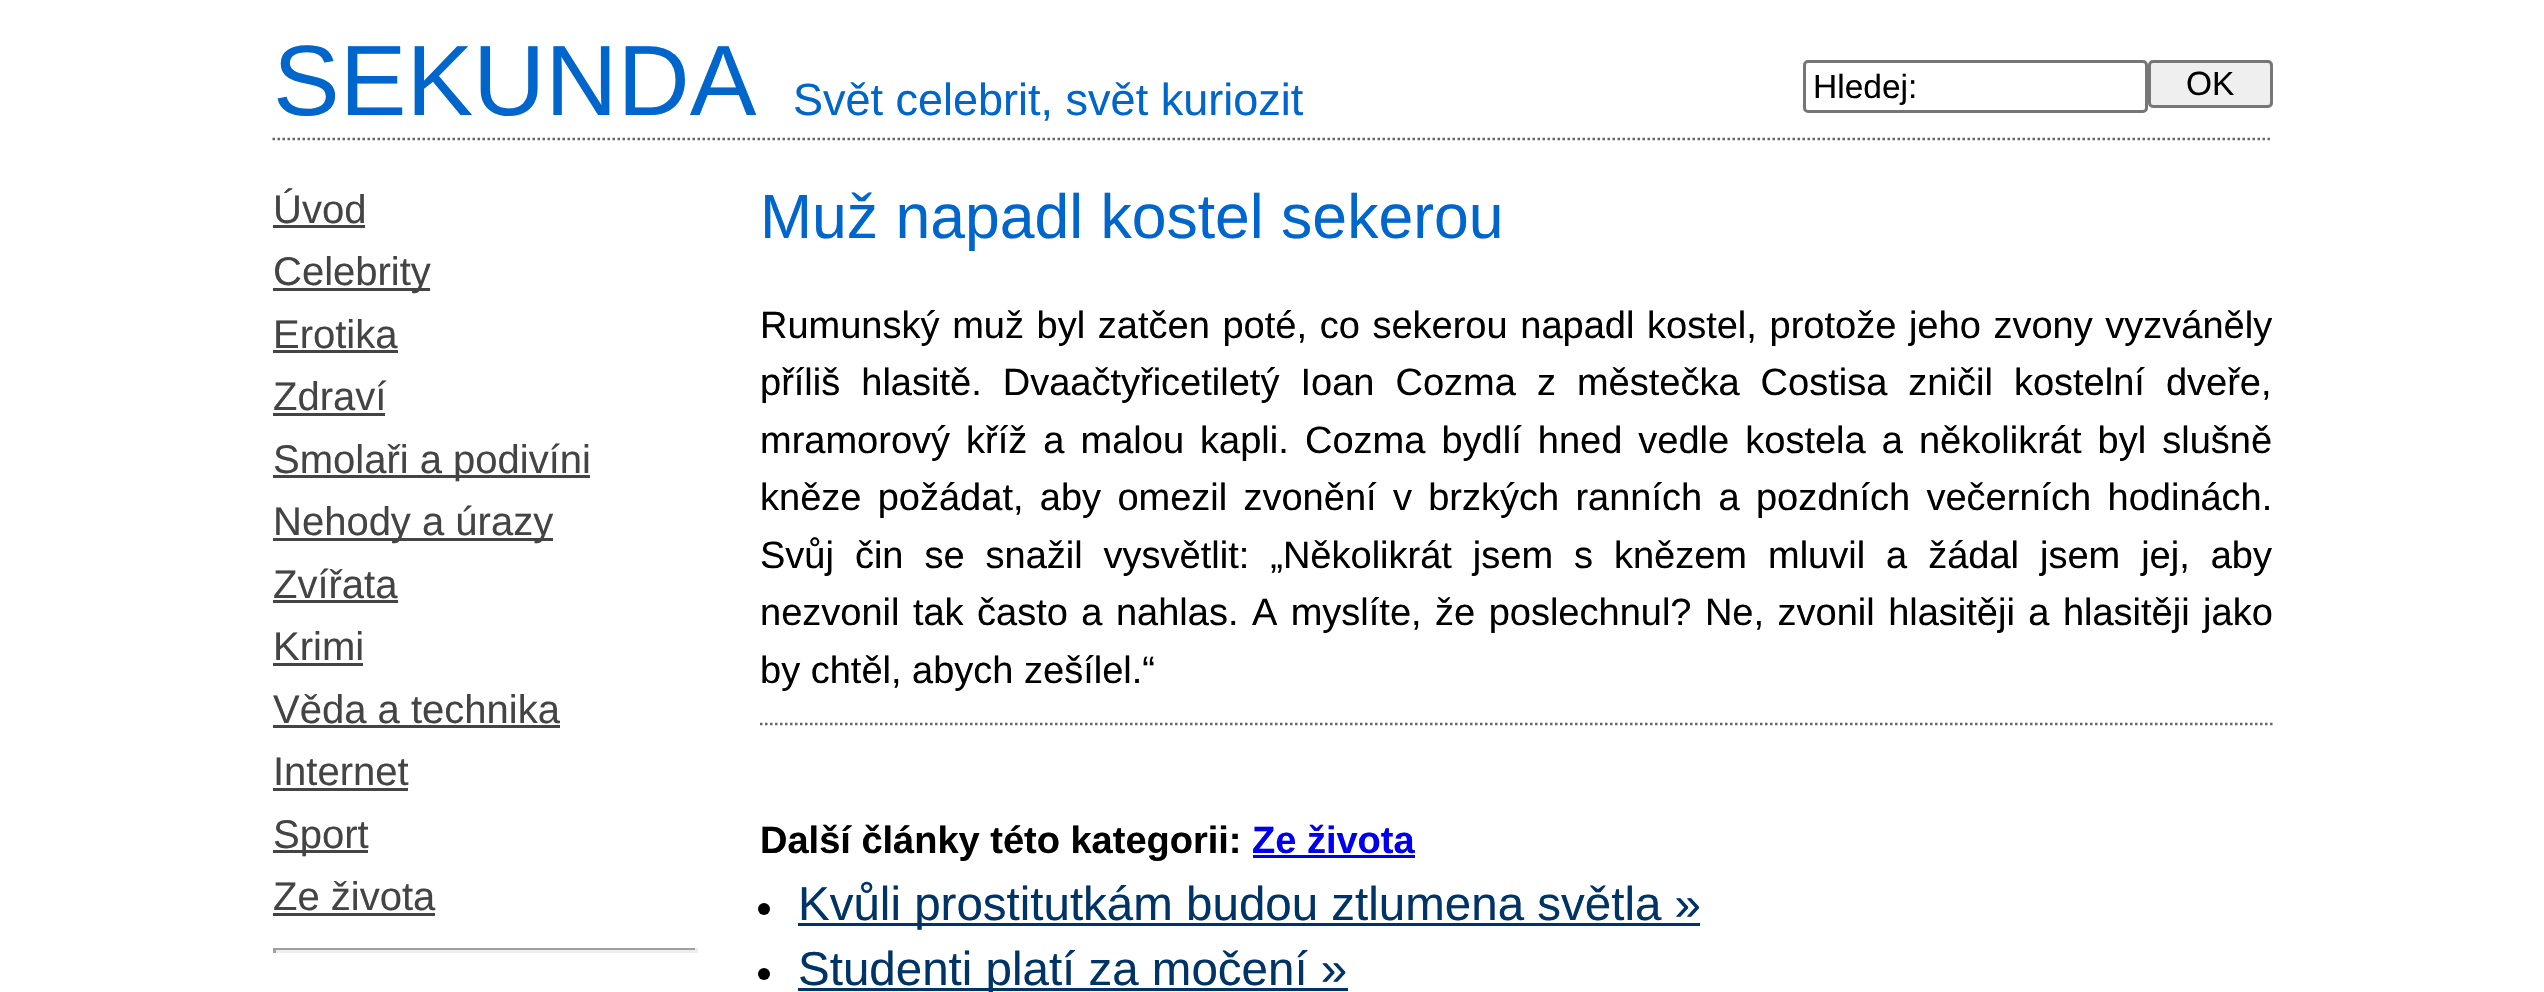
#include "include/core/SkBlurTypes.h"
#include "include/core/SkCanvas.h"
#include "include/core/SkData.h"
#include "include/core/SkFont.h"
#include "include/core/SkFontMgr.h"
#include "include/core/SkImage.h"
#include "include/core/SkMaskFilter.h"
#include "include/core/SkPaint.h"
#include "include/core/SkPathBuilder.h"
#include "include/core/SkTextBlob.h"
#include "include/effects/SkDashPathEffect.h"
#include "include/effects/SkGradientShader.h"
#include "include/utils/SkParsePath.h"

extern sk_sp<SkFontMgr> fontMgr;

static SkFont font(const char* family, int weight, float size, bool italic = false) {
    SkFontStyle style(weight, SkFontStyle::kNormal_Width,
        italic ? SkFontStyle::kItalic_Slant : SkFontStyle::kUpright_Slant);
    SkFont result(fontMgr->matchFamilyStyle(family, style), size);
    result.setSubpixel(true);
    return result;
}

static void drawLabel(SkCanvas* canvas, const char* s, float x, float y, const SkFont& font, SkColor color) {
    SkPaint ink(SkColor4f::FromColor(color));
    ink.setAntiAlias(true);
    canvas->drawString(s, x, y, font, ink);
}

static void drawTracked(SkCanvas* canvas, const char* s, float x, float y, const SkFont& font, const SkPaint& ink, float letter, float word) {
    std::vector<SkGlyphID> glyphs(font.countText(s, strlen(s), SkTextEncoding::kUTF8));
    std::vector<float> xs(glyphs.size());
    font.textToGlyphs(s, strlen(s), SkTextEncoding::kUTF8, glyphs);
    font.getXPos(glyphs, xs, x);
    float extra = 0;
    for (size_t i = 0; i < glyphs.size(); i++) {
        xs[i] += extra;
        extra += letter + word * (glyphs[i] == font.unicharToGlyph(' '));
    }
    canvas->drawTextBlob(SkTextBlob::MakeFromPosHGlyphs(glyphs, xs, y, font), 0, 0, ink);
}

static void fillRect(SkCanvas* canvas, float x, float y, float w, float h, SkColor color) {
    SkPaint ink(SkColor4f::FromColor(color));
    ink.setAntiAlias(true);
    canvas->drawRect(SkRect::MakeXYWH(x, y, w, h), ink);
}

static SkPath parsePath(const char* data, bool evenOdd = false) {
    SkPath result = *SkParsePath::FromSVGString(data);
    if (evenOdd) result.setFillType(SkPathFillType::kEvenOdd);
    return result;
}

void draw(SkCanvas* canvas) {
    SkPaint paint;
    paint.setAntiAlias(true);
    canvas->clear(0xFFFFFFFF);
    paint.setStroke(true);
    paint.setStrokeWidth(2.5f);
    paint.setColor(0xFF666666);
    paint.setPathEffect(SkDashPathEffect::Make({{2.5f, 2.5f}}, 0));
    canvas->drawPath(parsePath("M272.5 139H2272.5"), paint);
    paint.setPathEffect(nullptr);
    SkFont font1 = font("Liberation Sans", 400, 100);
    drawLabel(canvas, "SEKUNDA", 273, 115, font1, 0xFF0066CC);
    SkFont font2 = font("Liberation Sans", 400, 45);
    drawLabel(canvas, "Svět celebrit, svět kuriozit", 793, 115, font2, 0xFF0066CC);
    paint.setStrokeWidth(3);
    paint.setColor(0xFF767676);
    canvas->drawRoundRect(SkRect::MakeXYWH(1804.5f, 61.5f, 342, 50), 3.5f, 3.5f, paint);
    SkFont font3 = font("Liberation Sans", 400, 33.5f);
    drawLabel(canvas, "Hledej:", 1813, 98, font3, 0xFF000000);
    paint.setStroke(false);
    paint.setColor(0xFFEFEFEF);
    canvas->drawRoundRect(SkRect::MakeXYWH(2149.5f, 61.5f, 122, 45), 3.5f, 3.5f, paint);
    paint.setStroke(true);
    paint.setColor(0xFF767676);
    canvas->drawRoundRect(SkRect::MakeXYWH(2149.5f, 61.5f, 122, 45), 3.5f, 3.5f, paint);
    drawLabel(canvas, "OK", 2186, 95, font3, 0xFF000000);
    SkFont font4 = font("Liberation Sans", 400, 40);
    drawLabel(canvas, "Úvod", 273, 223, font4, 0xFF444444);
    fillRect(canvas, 273, 225, 92, 3, 0xFF444444);
    fillRect(canvas, 273, 288, 157, 3, 0xFF444444);
    drawLabel(canvas, "Celebrity", 273, 285, font4, 0xFF444444);
    drawLabel(canvas, "Erotika", 273, 348, font4, 0xFF444444);
    fillRect(canvas, 273, 350, 125, 3, 0xFF444444);
    drawLabel(canvas, "Zdraví", 273, 410, font4, 0xFF444444);
    fillRect(canvas, 273, 413, 112, 3, 0xFF444444);
    fillRect(canvas, 273, 475, 317, 3, 0xFF444444);
    drawLabel(canvas, "Smolaři a podivíni", 273, 473, font4, 0xFF444444);
    fillRect(canvas, 273, 538, 280, 3, 0xFF444444);
    drawLabel(canvas, "Nehody a úrazy", 273, 535, font4, 0xFF444444);
    drawLabel(canvas, "Zvířata", 273, 598, font4, 0xFF444444);
    fillRect(canvas, 273, 600, 125, 3, 0xFF444444);
    drawLabel(canvas, "Krimi", 273, 660, font4, 0xFF444444);
    fillRect(canvas, 273, 663, 90, 3, 0xFF444444);
    drawLabel(canvas, "Věda a technika", 273, 723, font4, 0xFF444444);
    fillRect(canvas, 273, 725, 287, 3, 0xFF444444);
    drawLabel(canvas, "Internet", 273, 785, font4, 0xFF444444);
    fillRect(canvas, 273, 788, 135, 3, 0xFF444444);
    fillRect(canvas, 273, 850, 95, 3, 0xFF444444);
    drawLabel(canvas, "Sport", 273, 848, font4, 0xFF444444);
    drawLabel(canvas, "Ze života", 273, 910, font4, 0xFF444444);
    fillRect(canvas, 273, 913, 162, 3, 0xFF444444);
    fillRect(canvas, 273, 948, 425, 2, 0xFF9F9F9F);
    fillRect(canvas, 695, 948, 3, 5, 0xFFEEEEEE);
    fillRect(canvas, 273, 950, 425, 3, 0xFFEEEEEE);
    fillRect(canvas, 273, 948, 3, 5, 0xFF9F9F9F);
    SkFont font5 = font("Liberation Sans", 400, 62.5f);
    drawLabel(canvas, "Muž napadl kostel sekerou", 760, 238, font5, 0xFF0066CC);
    paint.setStrokeWidth(2.5f);
    paint.setColor(0xFF666666);
    paint.setPathEffect(SkDashPathEffect::Make({{2.5f, 2.5f}}, 0));
    canvas->drawPath(parsePath("M760 724H2272.5"), paint);
    paint.setPathEffect(nullptr);
    SkFont font6 = font("Liberation Sans", 400, 38);
    paint.setStroke(false);
    paint.setColor(0xFF000000);
    drawTracked(canvas, "Rumunský muž byl zatčen poté, co sekerou napadl kostel, protože jeho zvony vyzváněly", 760, 338, font6, paint, 0, 2.1f);
    drawTracked(canvas, "příliš hlasitě. Dvaačtyřicetiletý Ioan Cozma z městečka Costisa zničil kostelní dveře,", 760, 395, font6, paint, 0, 10.5f);
    drawTracked(canvas, "mramorový kříž a malou kapli.", 760, 453, font6, paint, 0, 5.5f);
    drawTracked(canvas, "Cozma bydlí hned vedle kostela a několikrát byl slušně", 1305, 453, font6, paint, 0, 5.5f);
    drawTracked(canvas, "kněze požádat, aby omezil zvonění v brzkých ranních a pozdních večerních hodinách.", 760, 510, font6, paint, 0, 5.75f);
    drawTracked(canvas, "Svůj čin se snažil vysvětlit: „Několikrát jsem s knězem mluvil a žádal jsem jej, aby", 760, 568, font6, paint, 0, 10.4f);
    drawTracked(canvas, "nezvonil tak často a nahlas. A myslíte, že poslechnul? Ne, zvonil hlasitěji a hlasitěji jako", 760, 625, font6, paint, 0, 2.9f);
    drawLabel(canvas, "by chtěl, abych zešílel.“", 760, 683, font6, 0xFF000000);
    SkFont font7 = font("Liberation Sans", 700, 38);
    drawLabel(canvas, "Další články této kategorii:", 760, 853, font7, 0xFF000000);
    drawLabel(canvas, "Ze života", 1252, 853, font7, 0xFF0000EE);
    fillRect(canvas, 1253, 855, 162, 3, 0xFF0000EE);
    canvas->drawCircle(764, 909, 6, paint);
    fillRect(canvas, 798, 923, 902, 3, 0xFF003366);
    SkFont font8 = font("Liberation Sans", 400, 47.5f);
    drawLabel(canvas, "Kvůli prostitutkám budou ztlumena světla »", 798, 920, font8, 0xFF003366);
    canvas->drawCircle(764, 974, 6, paint);
    fillRect(canvas, 798, 988, 550, 3, 0xFF003366);
    drawLabel(canvas, "Studenti platí za močení »", 798, 985, font8, 0xFF003366);
}
